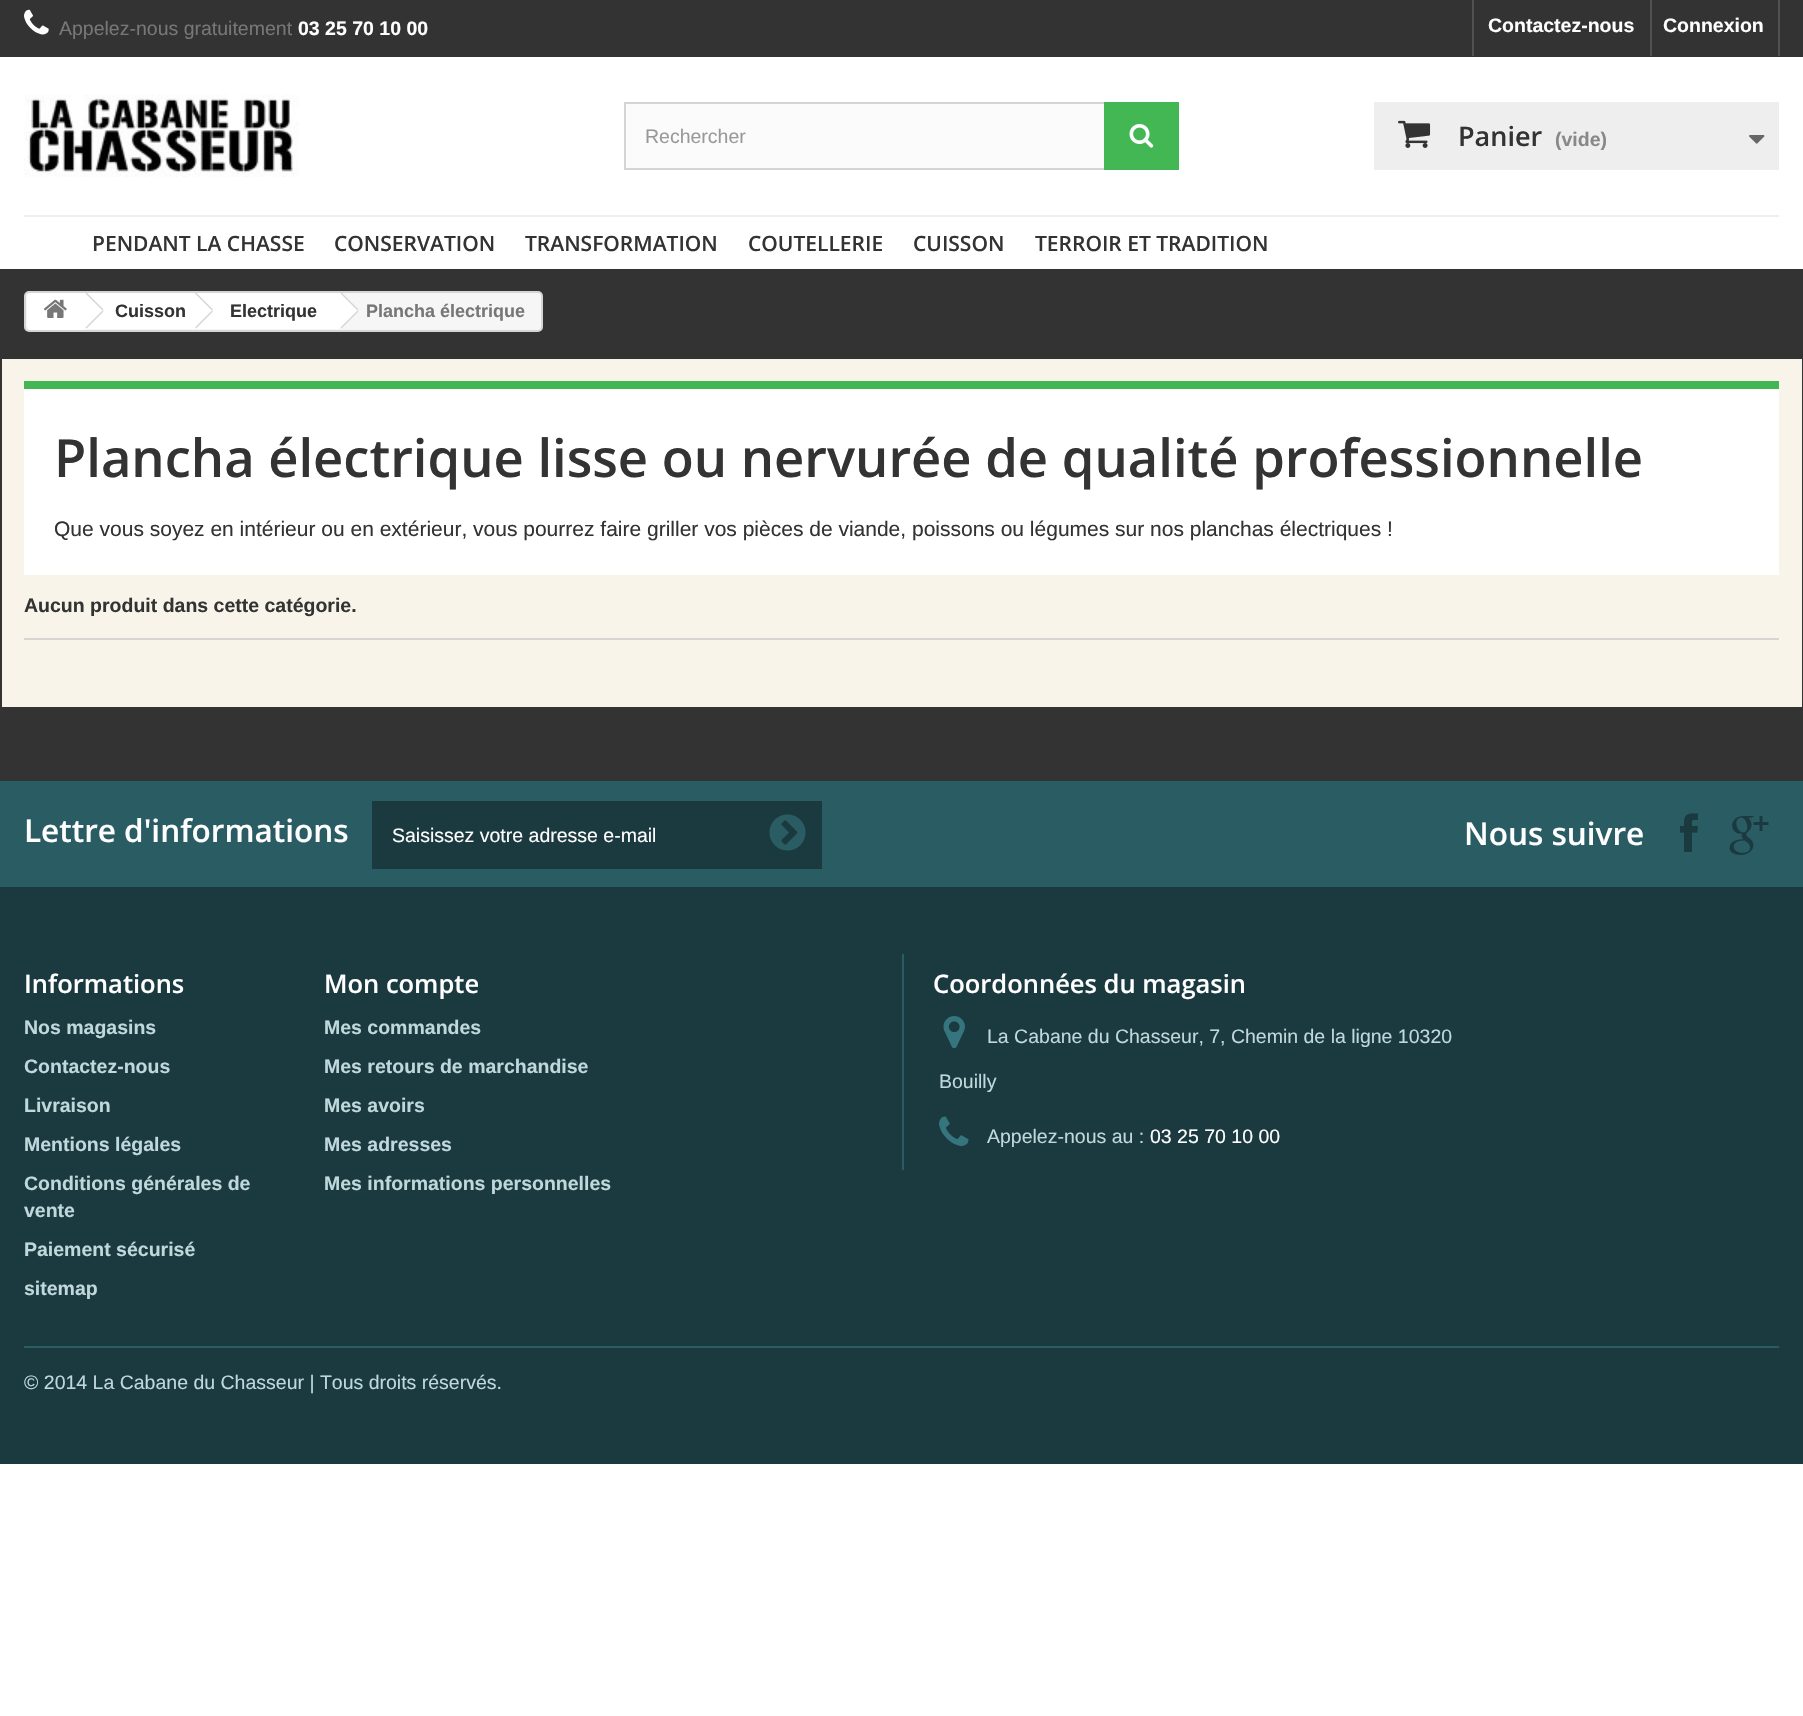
#include "include/core/SkBlurTypes.h"
#include "include/core/SkCanvas.h"
#include "include/core/SkData.h"
#include "include/core/SkFont.h"
#include "include/core/SkFontMgr.h"
#include "include/core/SkImage.h"
#include "include/core/SkMaskFilter.h"
#include "include/core/SkPaint.h"
#include "include/core/SkPathBuilder.h"
#include "include/core/SkTextBlob.h"
#include "include/effects/SkDashPathEffect.h"
#include "include/effects/SkGradientShader.h"
#include "include/utils/SkParsePath.h"

extern sk_sp<SkFontMgr> fontMgr;

static SkFont font(const char* family, int weight, float size, bool italic = false) {
    SkFontStyle style(weight, SkFontStyle::kNormal_Width,
        italic ? SkFontStyle::kItalic_Slant : SkFontStyle::kUpright_Slant);
    SkFont result(fontMgr->matchFamilyStyle(family, style), size);
    result.setSubpixel(true);
    return result;
}

static void drawLabel(SkCanvas* canvas, const char* s, float x, float y, const SkFont& font, SkColor color) {
    SkPaint ink(SkColor4f::FromColor(color));
    ink.setAntiAlias(true);
    canvas->drawString(s, x, y, font, ink);
}

static void fillRect(SkCanvas* canvas, float x, float y, float w, float h, SkColor color) {
    SkPaint ink(SkColor4f::FromColor(color));
    ink.setAntiAlias(true);
    canvas->drawRect(SkRect::MakeXYWH(x, y, w, h), ink);
}

static void drawPhoto(SkCanvas* canvas, const char* path, float x, float y, float w, float h) {
    auto image = SkImages::DeferredFromEncodedData(SkData::MakeFromFileName(path));
    canvas->drawImageRect(image, SkRect::MakeXYWH(x, y, w, h), SkSamplingOptions());
}

static SkPath parsePath(const char* data, bool evenOdd = false) {
    SkPath result = *SkParsePath::FromSVGString(data);
    if (evenOdd) result.setFillType(SkPathFillType::kEvenOdd);
    return result;
}

void draw(SkCanvas* canvas) {
    SkPaint paint;
    paint.setAntiAlias(true);
    canvas->clear(0xFFFFFFFF);
    fillRect(canvas, 0, 0, 1803, 57, 0xFF333333);
    drawPhoto(canvas, "assets/img1.png", 24, 9, 25, 26);
    SkFont font1 = font("Liberation Sans", 400, 19.5f);
    drawLabel(canvas, "Appelez-nous gratuitement", 59, 35, font1, 0xFF777777);
    SkFont font2 = font("Liberation Sans", 700, 19.5f);
    drawLabel(canvas, "03 25 70 10 00", 298, 35, font2, 0xFFFFFFFF);
    fillRect(canvas, 1472, 0, 2, 56, 0xFF515151);
    drawLabel(canvas, "Contactez-nous", 1488, 32, font2, 0xFFFFFFFF);
    fillRect(canvas, 1778, 0, 2, 56, 0xFF515151);
    fillRect(canvas, 1650, 0, 2, 56, 0xFF515151);
    drawLabel(canvas, "Connexion", 1663, 32, font2, 0xFFFFFFFF);
    drawPhoto(canvas, "assets/img2.png", 24, 94, 275, 83);
    fillRect(canvas, 626, 104, 478, 64, 0xFFFBFBFB);
    paint.setStroke(true);
    paint.setStrokeWidth(2);
    paint.setColor(0xFFD6D4D4);
    canvas->drawRect(SkRect::MakeXYWH(625, 103, 553, 66), paint);
    drawLabel(canvas, "Rechercher", 645, 143, font1, 0xFF999999);
    fillRect(canvas, 1104, 102, 75, 68, 0xFF43B754);
    drawPhoto(canvas, "assets/img3.png", 1129, 124, 25, 24);
    fillRect(canvas, 1374, 102, 405, 68, 0xFFEEEEEE);
    drawPhoto(canvas, "assets/img4.png", 1398, 120, 33, 28);
    SkFont font3 = font("Open Sans", 600, 27);
    drawLabel(canvas, "Panier", 1458, 146, font3, 0xFF333333);
    drawLabel(canvas, "(vide)", 1555, 146, font2, 0xFF888888);
    drawPhoto(canvas, "assets/img5.png", 1749, 135, 16, 9);
    fillRect(canvas, 24, 215, 1755, 2, 0xFFEEEEEE);
    SkFont font4 = font("Open Sans", 600, 21);
    drawLabel(canvas, "PENDANT LA CHASSE", 92, 251, font4, 0xFF333333);
    drawLabel(canvas, "CONSERVATION", 334, 251, font4, 0xFF333333);
    drawLabel(canvas, "TRANSFORMATION", 525, 251, font4, 0xFF333333);
    drawLabel(canvas, "COUTELLERIE", 748, 251, font4, 0xFF333333);
    drawLabel(canvas, "CUISSON", 913, 251, font4, 0xFF333333);
    drawLabel(canvas, "TERROIR ET TRADITION", 1035, 251, font4, 0xFF333333);
    fillRect(canvas, 0, 269, 1803, 512, 0xFF333333);
    paint.setStroke(false);
    paint.setColor(0xFFF6F6F6);
    canvas->drawRoundRect(SkRect::MakeXYWH(25, 292, 517, 39), 4, 4, paint);
    paint.setStroke(true);
    paint.setColor(0xFFD6D4D4);
    canvas->drawRoundRect(SkRect::MakeXYWH(25, 292, 517, 39), 4, 4, paint);
    paint.setStroke(false);
    paint.setColor(0xFFFFFFFF);
    canvas->drawPath(parsePath("M32 293H84V330H32C29 330 27 328 27 325V298C27 295 29 293 32 293Z"), paint);
    drawPhoto(canvas, "assets/img6.png", 44, 299, 23, 19);
    fillRect(canvas, 84, 293, 113, 36, 0xFFFFFFFF);
    paint.setColor(0xFFD6D4D4);
    canvas->drawPath(parsePath("M86.5 292.5L103.5 309.5L102.5 310.5L85.5 293.5Z"), paint);
    canvas->drawPath(parsePath("M102.5 310.5L103.5 311.5L86.5 328.5L85.5 327.5Z"), paint);
    SkFont font5 = font("Liberation Sans", 700, 18);
    drawLabel(canvas, "Cuisson", 115, 317, font5, 0xFF333333);
    paint.setColor(0xFFFFFFFF);
    canvas->drawPath(parsePath("M212 293.5L211.5 293H208.5L208 293.5L193 308.5C192 309.5 192 311.5 193 312.5L208 327.5C209 328.5 211 328.5 212 327.5L227 312.5C228 311.5 228 309.5 227 308.5Z"), paint);
    fillRect(canvas, 197, 293, 142, 36, 0xFFFFFFFF);
    paint.setColor(0xFFD6D4D4);
    canvas->drawPath(parsePath("M196 292.5L213 309.5L212 310.5L195 293.5Z"), paint);
    canvas->drawPath(parsePath("M212 310.5L213 311.5L196 328.5L195 327.5Z"), paint);
    drawLabel(canvas, "Electrique", 230, 317, font5, 0xFF333333);
    paint.setColor(0xFFFFFFFF);
    canvas->drawPath(parsePath("M342.5 293.5L342 293H339L338.5 293.5L323.5 308.5C322.5 309.5 322.5 311.5 323.5 312.5L338.5 327.5C339.5 328.5 341.5 328.5 342.5 327.5L357.5 312.5C358.5 311.5 358.5 309.5 357.5 308.5Z"), paint);
    paint.setColor(0xFFD6D4D4);
    canvas->drawPath(parsePath("M341.5 292.5L358.5 309.5L357.5 310.5L340.5 293.5Z"), paint);
    canvas->drawPath(parsePath("M357.5 310.5L358.5 311.5L341.5 328.5L340.5 327.5Z"), paint);
    drawLabel(canvas, "Plancha électrique", 366, 317, font5, 0xFF777777);
    fillRect(canvas, 2, 359, 1800, 348, 0xFFF8F4E9);
    fillRect(canvas, 24, 381, 1755, 8, 0xFF43B754);
    fillRect(canvas, 24, 389, 1755, 186, 0xFFFFFFFF);
    SkFont font6 = font("Open Sans", 600, 52.5f);
    drawLabel(canvas, "Plancha électrique lisse ou nervurée de qualité professionnelle", 54, 477, font6, 0xFF333333);
    SkFont font7 = font("Liberation Sans", 400, 21);
    drawLabel(canvas, "Que vous soyez en intérieur ou en extérieur, vous pourrez faire griller vos pièces de viande, poissons ou légumes sur nos planchas électriques !", 54, 536, font7, 0xFF333333);
    fillRect(canvas, 24, 638, 1755, 2, 0xFFD6D4D4);
    drawLabel(canvas, "Aucun produit dans cette catégorie.", 24, 612, font2, 0xFF333333);
    fillRect(canvas, 0, 887, 1803, 577, 0xFF1A3A3F);
    fillRect(canvas, 0, 781, 1803, 106, 0xFF2A5C64);
    SkFont font8 = font("Open Sans", 600, 31.5f);
    drawLabel(canvas, "Lettre d'informations", 24, 842, font8, 0xFFFFFFFF);
    fillRect(canvas, 372, 801, 450, 68, 0xFF1A3A3F);
    drawLabel(canvas, "Saisissez votre adresse e-mail", 392, 842, font1, 0xFFFFFFFF);
    drawPhoto(canvas, "assets/img7.png", 769, 814, 37, 37);
    drawLabel(canvas, "Nous suivre", 1464, 845, font8, 0xFFFFFFFF);
    drawPhoto(canvas, "assets/img8.png", 1680, 813, 18, 39);
    drawPhoto(canvas, "assets/img9.png", 1729, 816, 40, 39);
    SkFont font9 = font("Open Sans", 600, 25.5f);
    drawLabel(canvas, "Informations", 24, 993, font9, 0xFFFFFFFF);
    drawLabel(canvas, "Nos magasins", 24, 1034, font2, 0xFFC0D8DC);
    drawLabel(canvas, "Contactez-nous", 24, 1073, font2, 0xFFC0D8DC);
    drawLabel(canvas, "Livraison", 24, 1112, font2, 0xFFC0D8DC);
    drawLabel(canvas, "Mentions légales", 24, 1151, font2, 0xFFC0D8DC);
    drawLabel(canvas, "Conditions générales de", 24, 1190, font2, 0xFFC0D8DC);
    drawLabel(canvas, "vente", 24, 1217, font2, 0xFFC0D8DC);
    drawLabel(canvas, "Paiement sécurisé", 24, 1256, font2, 0xFFC0D8DC);
    drawLabel(canvas, "sitemap", 24, 1295, font2, 0xFFC0D8DC);
    drawLabel(canvas, "Mon compte", 324, 993, font9, 0xFFFFFFFF);
    drawLabel(canvas, "Mes commandes", 324, 1034, font2, 0xFFC0D8DC);
    drawLabel(canvas, "Mes retours de marchandise", 324, 1073, font2, 0xFFC0D8DC);
    drawLabel(canvas, "Mes avoirs", 324, 1112, font2, 0xFFC0D8DC);
    drawLabel(canvas, "Mes adresses", 324, 1151, font2, 0xFFC0D8DC);
    drawLabel(canvas, "Mes informations personnelles", 324, 1190, font2, 0xFFC0D8DC);
    fillRect(canvas, 902, 954, 2, 216, 0xFF2A5C64);
    drawLabel(canvas, "Coordonnées du magasin", 933, 993, font9, 0xFFFFFFFF);
    drawPhoto(canvas, "assets/img10.png", 943, 1016, 22, 33);
    drawLabel(canvas, "La Cabane du Chasseur, 7, Chemin de la ligne 10320", 987, 1043, font1, 0xFFC0D8DC);
    drawLabel(canvas, "Bouilly", 939, 1088, font1, 0xFFC0D8DC);
    drawPhoto(canvas, "assets/img11.png", 939, 1116, 30, 30);
    drawLabel(canvas, "Appelez-nous au :", 987, 1143, font1, 0xFFC0D8DC);
    drawLabel(canvas, "03 25 70 10 00", 1150, 1143, font1, 0xFFFFFFFF);
    fillRect(canvas, 24, 1346, 1755, 2, 0xFF2A5C64);
    drawLabel(canvas, "© 2014 La Cabane du Chasseur | Tous droits réservés.", 24, 1389, font1, 0xFFC0D8DC);
}
